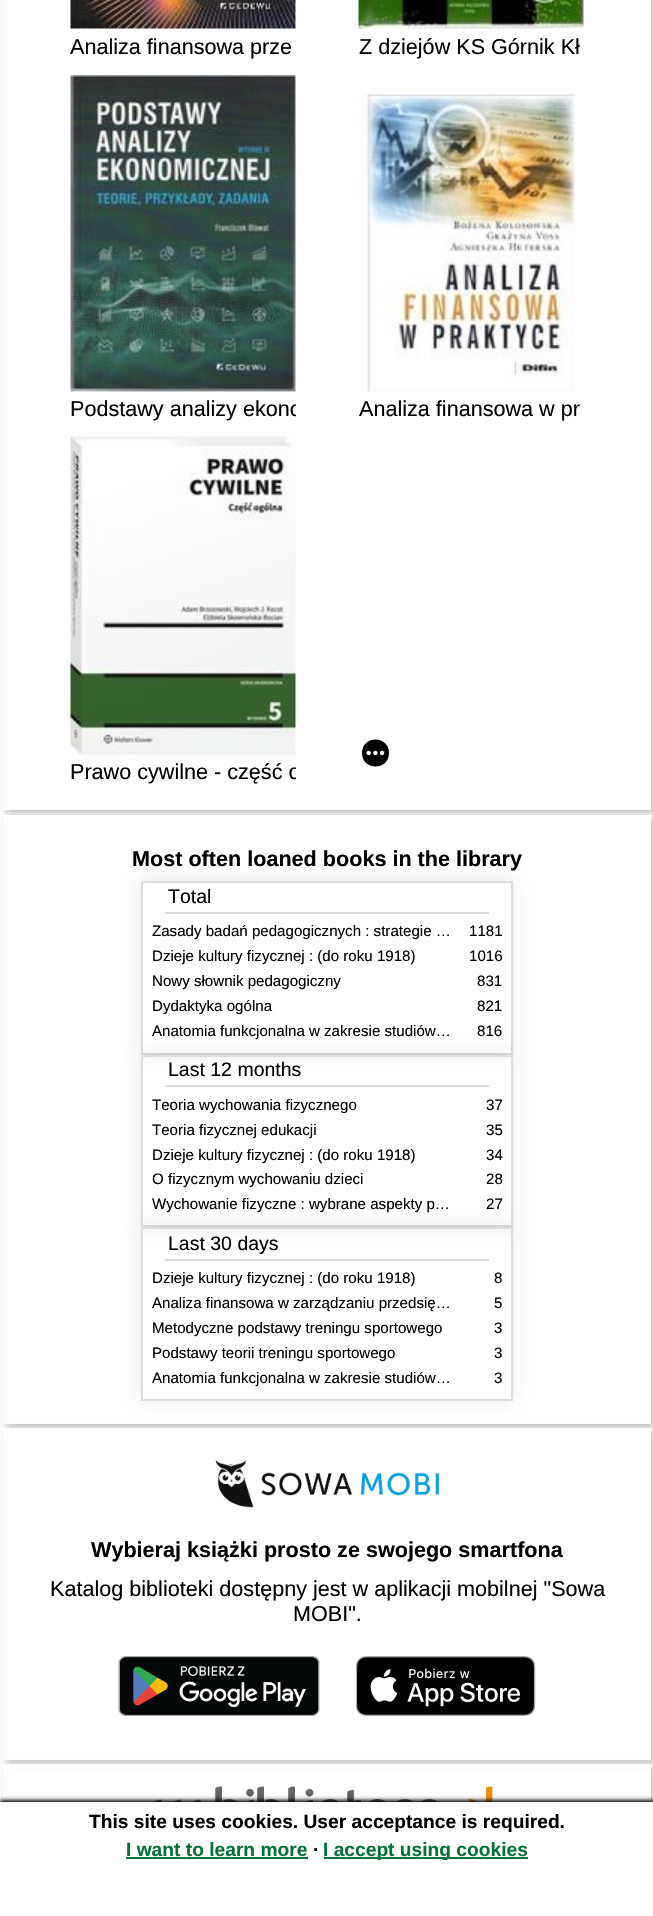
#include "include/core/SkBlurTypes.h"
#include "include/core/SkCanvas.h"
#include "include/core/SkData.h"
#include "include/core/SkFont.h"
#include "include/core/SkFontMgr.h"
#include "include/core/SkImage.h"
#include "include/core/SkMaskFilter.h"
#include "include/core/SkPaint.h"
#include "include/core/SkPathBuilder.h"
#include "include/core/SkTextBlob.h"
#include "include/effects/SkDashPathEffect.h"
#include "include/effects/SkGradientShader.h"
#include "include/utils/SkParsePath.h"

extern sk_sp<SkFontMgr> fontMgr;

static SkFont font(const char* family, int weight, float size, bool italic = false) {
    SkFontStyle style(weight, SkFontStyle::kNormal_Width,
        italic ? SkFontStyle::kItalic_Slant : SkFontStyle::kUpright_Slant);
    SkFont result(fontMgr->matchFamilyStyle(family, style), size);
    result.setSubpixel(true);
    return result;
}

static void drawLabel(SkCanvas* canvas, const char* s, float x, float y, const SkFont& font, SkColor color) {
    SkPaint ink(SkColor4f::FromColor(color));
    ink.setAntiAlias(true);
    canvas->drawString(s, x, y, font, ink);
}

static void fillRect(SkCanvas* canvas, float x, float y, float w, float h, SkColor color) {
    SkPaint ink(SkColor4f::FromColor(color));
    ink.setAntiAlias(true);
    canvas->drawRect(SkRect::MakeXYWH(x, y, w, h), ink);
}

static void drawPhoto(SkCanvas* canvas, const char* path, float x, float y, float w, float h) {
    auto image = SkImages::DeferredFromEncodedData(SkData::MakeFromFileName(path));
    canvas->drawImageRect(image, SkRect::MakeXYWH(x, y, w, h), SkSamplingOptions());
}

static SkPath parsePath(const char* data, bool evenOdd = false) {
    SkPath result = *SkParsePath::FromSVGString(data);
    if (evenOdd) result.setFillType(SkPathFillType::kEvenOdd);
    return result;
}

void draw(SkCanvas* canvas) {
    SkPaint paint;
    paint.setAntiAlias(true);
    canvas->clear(0xFFFFFFFF);
    canvas->save();
    canvas->clipPath(parsePath("M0 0H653V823H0ZM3-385H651V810H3Z", true), true);
    paint.setColor(0x40000000);
    paint.setMaskFilter(SkMaskFilter::MakeBlur(kNormal_SkBlurStyle, 3));
    canvas->drawRect(SkRect::MakeXYWH(6, -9, 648, 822), paint);
    paint.setMaskFilter(nullptr);
    canvas->restore();
    drawPhoto(canvas, "assets/img1.png", 70, 0, 226, 29);
    SkFont font1 = font("Liberation Sans", 400, 21.6f);
    drawLabel(canvas, "Analiza finansowa prze", 70, 54, font1, 0xFF000000);
    drawPhoto(canvas, "assets/img2.png", 358, 0, 226, 29);
    drawLabel(canvas, "Z dziejów KS Górnik Kł", 359, 54, font1, 0xFF000000);
    drawPhoto(canvas, "assets/img3.png", 70, 75, 226, 317);
    canvas->save();
    canvas->clipRect(SkRect::MakeXYWH(71, 396, 225, 32));
    drawLabel(canvas, "Podstawy analizy ekono", 70, 416, font1, 0xFF000000);
    canvas->restore();
    drawPhoto(canvas, "assets/img4.png", 359, 94, 216, 298);
    drawLabel(canvas, "Analiza finansowa w pr", 359, 416, font1, 0xFF000000);
    paint.setColor(0xFF000000);
    canvas->drawPath(parsePath("M362 753C362 735 389 735 389 753C389 771 362 771 362 753Z"), paint);
    drawPhoto(canvas, "assets/img5.png", 366, 750, 19, 6);
    drawPhoto(canvas, "assets/img6.png", 70, 436, 226, 319);
    canvas->save();
    canvas->clipRect(SkRect::MakeXYWH(71, 759, 225, 32));
    drawLabel(canvas, "Prawo cywilne - część o", 70, 779, font1, 0xFF000000);
    canvas->restore();
    canvas->save();
    canvas->clipPath(parsePath("M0 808H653V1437H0ZM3 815H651V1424H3Z", true), true);
    paint.setColor(0x40000000);
    paint.setMaskFilter(SkMaskFilter::MakeBlur(kNormal_SkBlurStyle, 3));
    canvas->drawRect(SkRect::MakeXYWH(6, 818, 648, 609), paint);
    paint.setMaskFilter(nullptr);
    canvas->restore();
    fillRect(canvas, 3, 815, 648, 609, 0xF2FFFFFF);
    SkFont font2 = font("Liberation Sans", 700, 21.6f);
    drawLabel(canvas, "Most often loaned books in the library", 132, 866, font2, 0xFF000000);
    canvas->save();
    canvas->clipPath(parsePath("M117 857H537V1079H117ZM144 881H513V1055H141V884C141 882.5 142.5 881 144 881Z", true), true);
    paint.setColor(0x1A000000);
    paint.setMaskFilter(SkMaskFilter::MakeBlur(kNormal_SkBlurStyle, 7.5f));
    canvas->drawRoundRect(SkRect::MakeXYWH(141, 881, 372, 174), 3, 3, paint);
    paint.setMaskFilter(nullptr);
    canvas->restore();
    paint.setStroke(true);
    paint.setStrokeWidth(2);
    paint.setColor(0xFFDDDDDD);
    canvas->drawPath(parsePath("M144 882H512V1054H142V884C142 883 143 882 144 882Z"), paint);
    fillRect(canvas, 165, 912, 324, 2, 0xFFDDDDDD);
    SkFont font3 = font("Liberation Sans", 400, 19.5f);
    drawLabel(canvas, "Total", 168, 903, font3, 0xFF000000);
    SkFont font4 = font("Liberation Sans", 400, 15.1f);
    drawLabel(canvas, "Zasady badań pedagogicznych : strategie …", 152, 936, font4, 0xFF000000);
    drawLabel(canvas, "1181", 469, 936, font4, 0xFF000000);
    drawLabel(canvas, "Dzieje kultury fizycznej : (do roku 1918)", 152, 961, font4, 0xFF000000);
    drawLabel(canvas, "1016", 469, 961, font4, 0xFF000000);
    drawLabel(canvas, "Nowy słownik pedagogiczny", 152, 986, font4, 0xFF000000);
    drawLabel(canvas, "831", 477, 986, font4, 0xFF000000);
    canvas->save();
    canvas->clipRect(SkRect::MakeXYWH(152, 998, 300, 16));
    drawLabel(canvas, "Dydaktyka ogólna", 152, 1011, font4, 0xFF000000);
    canvas->restore();
    drawLabel(canvas, "821", 477, 1011, font4, 0xFF000000);
    canvas->save();
    canvas->clipPath(parsePath("M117 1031H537V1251H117ZM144 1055H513V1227H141V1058C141 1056.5 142.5 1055 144 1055Z", true), true);
    paint.setStroke(false);
    paint.setColor(0x1A000000);
    paint.setMaskFilter(SkMaskFilter::MakeBlur(kNormal_SkBlurStyle, 7.5f));
    canvas->drawRoundRect(SkRect::MakeXYWH(141, 1055, 372, 172), 3, 3, paint);
    paint.setMaskFilter(nullptr);
    canvas->restore();
    drawLabel(canvas, "Anatomia funkcjonalna w zakresie studiów…", 152, 1036, font4, 0xFF000000);
    drawLabel(canvas, "816", 477, 1036, font4, 0xFF000000);
    paint.setStroke(true);
    paint.setColor(0xFFDDDDDD);
    canvas->drawPath(parsePath("M144 1056H512V1226H142V1058C142 1057 143 1056 144 1056Z"), paint);
    fillRect(canvas, 165, 1085, 324, 2, 0xFFDDDDDD);
    drawLabel(canvas, "Last 12 months", 168, 1076, font3, 0xFF000000);
    canvas->save();
    canvas->clipRect(SkRect::MakeXYWH(152, 1097, 300, 16));
    drawLabel(canvas, "Teoria wychowania fizycznego", 152, 1110, font4, 0xFF000000);
    canvas->restore();
    drawLabel(canvas, "37", 486, 1110, font4, 0xFF000000);
    drawLabel(canvas, "Teoria fizycznej edukacji", 152, 1135, font4, 0xFF000000);
    drawLabel(canvas, "35", 486, 1135, font4, 0xFF000000);
    drawLabel(canvas, "Dzieje kultury fizycznej : (do roku 1918)", 152, 1160, font4, 0xFF000000);
    drawLabel(canvas, "34", 486, 1160, font4, 0xFF000000);
    drawLabel(canvas, "O fizycznym wychowaniu dzieci", 152, 1184, font4, 0xFF000000);
    drawLabel(canvas, "28", 486, 1184, font4, 0xFF000000);
    canvas->save();
    canvas->clipPath(parsePath("M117 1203H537V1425H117ZM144 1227H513V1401H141V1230C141 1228.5 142.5 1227 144 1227Z", true), true);
    paint.setStroke(false);
    paint.setColor(0x1A000000);
    paint.setMaskFilter(SkMaskFilter::MakeBlur(kNormal_SkBlurStyle, 7.5f));
    canvas->drawRoundRect(SkRect::MakeXYWH(141, 1227, 372, 174), 3, 3, paint);
    paint.setMaskFilter(nullptr);
    canvas->restore();
    drawLabel(canvas, "Wychowanie fizyczne : wybrane aspekty p…", 152, 1209, font4, 0xFF000000);
    drawLabel(canvas, "27", 486, 1209, font4, 0xFF000000);
    paint.setStroke(true);
    paint.setColor(0xFFDDDDDD);
    canvas->drawPath(parsePath("M144 1228H512V1400H142V1230C142 1229 143 1228 144 1228Z"), paint);
    fillRect(canvas, 165, 1259, 324, 2, 0xFFDDDDDD);
    drawLabel(canvas, "Last 30 days", 168, 1250, font3, 0xFF000000);
    drawLabel(canvas, "Dzieje kultury fizycznej : (do roku 1918)", 152, 1283, font4, 0xFF000000);
    drawLabel(canvas, "8", 494, 1283, font4, 0xFF000000);
    drawLabel(canvas, "Analiza finansowa w zarządzaniu przedsię…", 152, 1308, font4, 0xFF000000);
    drawLabel(canvas, "5", 494, 1308, font4, 0xFF000000);
    drawLabel(canvas, "Metodyczne podstawy treningu sportowego", 152, 1333, font4, 0xFF000000);
    drawLabel(canvas, "3", 494, 1333, font4, 0xFF000000);
    drawLabel(canvas, "Podstawy teorii treningu sportowego", 152, 1358, font4, 0xFF000000);
    drawLabel(canvas, "3", 494, 1358, font4, 0xFF000000);
    drawLabel(canvas, "Anatomia funkcjonalna w zakresie studiów…", 152, 1383, font4, 0xFF000000);
    drawLabel(canvas, "3", 494, 1383, font4, 0xFF000000);
    canvas->save();
    canvas->clipPath(parsePath("M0 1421H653V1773H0ZM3 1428H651V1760H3Z", true), true);
    paint.setStroke(false);
    paint.setColor(0x40000000);
    paint.setMaskFilter(SkMaskFilter::MakeBlur(kNormal_SkBlurStyle, 3));
    canvas->drawRect(SkRect::MakeXYWH(6, 1431, 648, 332), paint);
    paint.setMaskFilter(nullptr);
    canvas->restore();
    fillRect(canvas, 3, 1428, 648, 332, 0xF2FFFFFF);
    drawPhoto(canvas, "assets/img7.png", 215, 1460, 224, 48);
    drawLabel(canvas, "Wybieraj książki prosto ze swojego smartfona", 91, 1557, font2, 0xFF000000);
    drawLabel(canvas, "Katalog biblioteki dostępny jest w aplikacji mobilnej \"Sowa", 50, 1596, font1, 0xFF000000);
    drawLabel(canvas, "MOBI\".", 293, 1621, font1, 0xFF000000);
    drawPhoto(canvas, "assets/img8.png", 118, 1656, 202, 60);
    drawPhoto(canvas, "assets/img9.png", 356, 1656, 180, 60);
    canvas->save();
    canvas->clipPath(parsePath("M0 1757H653V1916H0ZM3 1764H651V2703H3Z", true), true);
    paint.setMaskFilter(SkMaskFilter::MakeBlur(kNormal_SkBlurStyle, 3));
    canvas->drawRect(SkRect::MakeXYWH(6, 1767, 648, 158), paint);
    paint.setMaskFilter(nullptr);
    canvas->restore();
    {
        const SkColor colors[] = {0xFFFFFFFF, 0xFFFFFFFF, 0xB3FFFFFF};
        const float stops[] = {0, 0.5f, 1};
        const SkPoint ends[] = {{327, 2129}, {327, 1764}};
        paint.setShader(SkGradientShader::MakeLinear(ends, colors, stops, 3, SkTileMode::kClamp));
        paint.setAlpha(255);
    }
    canvas->drawRect(SkRect::MakeXYWH(3, 1764, 648, 4), paint);
    drawPhoto(canvas, "assets/img10.png", 154, 1786, 339, 16);
    paint.setShader(nullptr);
    paint.setColor(0xFF000000);
    paint.setMaskFilter(SkMaskFilter::MakeBlur(kNormal_SkBlurStyle, 2));
    canvas->drawRect(SkRect::MakeXYWH(0, 1800, 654, 116), paint);
    paint.setMaskFilter(nullptr);
    fillRect(canvas, 0, 1802, 653, 114, 0xFFFFFFFF);
    SkFont font5 = font("Liberation Sans", 700, 19.2f);
    drawLabel(canvas, "This site uses cookies. User acceptance is required.", 89, 1828, font5, 0xFF000000);
    drawLabel(canvas, "I want to learn more", 126, 1856, font5, 0xFF047139);
    fillRect(canvas, 126, 1857, 182, 2, 0xFF047139);
    drawLabel(canvas, "∙", 313, 1856, font5, 0xFF000000);
    fillRect(canvas, 324, 1857, 204, 2, 0xFF047139);
    drawLabel(canvas, "I accept using cookies", 323, 1856, font5, 0xFF047139);
}
